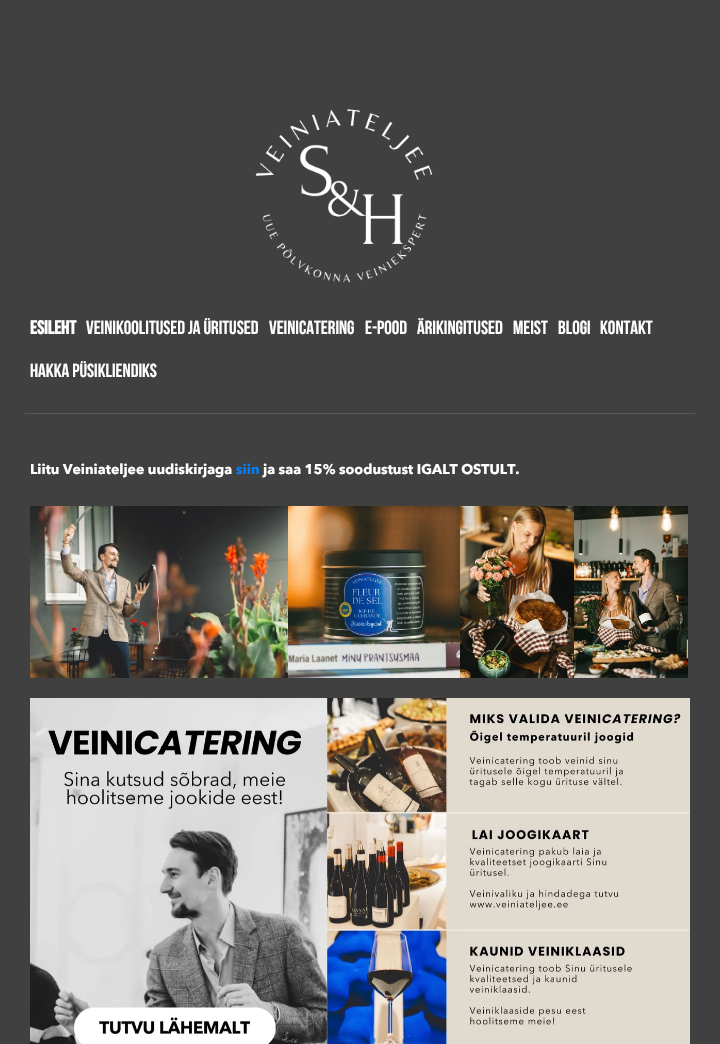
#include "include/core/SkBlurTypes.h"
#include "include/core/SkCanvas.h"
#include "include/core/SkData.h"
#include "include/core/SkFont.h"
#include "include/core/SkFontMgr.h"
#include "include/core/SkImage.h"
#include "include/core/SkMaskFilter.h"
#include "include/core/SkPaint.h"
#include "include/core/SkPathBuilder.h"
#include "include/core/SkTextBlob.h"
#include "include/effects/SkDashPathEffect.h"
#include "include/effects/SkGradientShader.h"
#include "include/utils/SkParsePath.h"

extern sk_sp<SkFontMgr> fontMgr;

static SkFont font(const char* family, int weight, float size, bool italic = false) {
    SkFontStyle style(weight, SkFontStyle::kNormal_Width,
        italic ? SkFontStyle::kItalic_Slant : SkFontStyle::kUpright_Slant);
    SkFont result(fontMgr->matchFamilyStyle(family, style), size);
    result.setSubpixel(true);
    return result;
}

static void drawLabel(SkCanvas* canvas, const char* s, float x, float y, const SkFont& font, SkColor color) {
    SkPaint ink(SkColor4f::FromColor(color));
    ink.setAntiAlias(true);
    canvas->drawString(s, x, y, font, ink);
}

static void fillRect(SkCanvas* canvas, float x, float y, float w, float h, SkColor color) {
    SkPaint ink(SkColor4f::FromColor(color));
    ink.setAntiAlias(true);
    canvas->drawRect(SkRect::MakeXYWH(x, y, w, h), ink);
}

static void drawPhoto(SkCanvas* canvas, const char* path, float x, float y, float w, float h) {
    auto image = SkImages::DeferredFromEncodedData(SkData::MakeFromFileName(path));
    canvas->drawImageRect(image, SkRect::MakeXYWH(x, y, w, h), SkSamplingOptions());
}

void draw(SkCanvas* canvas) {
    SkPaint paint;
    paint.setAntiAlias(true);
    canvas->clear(0xFF404040);
    fillRect(canvas, 25, 413, 670, 1, 0xFF585858);
    drawPhoto(canvas, "assets/img1.png", 255, 109, 178, 174);
    SkFont font1 = font("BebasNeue", 700, 19);
    drawLabel(canvas, "ESILEHT", 30, 334, font1, 0xFFFFFFFF);
    SkFont font2 = font("BebasNeue", 400, 19);
    drawLabel(canvas, "VEINIKOOLITUSED JA ÜRITUSED", 86, 334, font2, 0xFFFFFFFF);
    drawLabel(canvas, "VEINICATERING", 269, 334, font2, 0xFFFFFFFF);
    drawLabel(canvas, "E-POOD", 365, 334, font2, 0xFFFFFFFF);
    drawLabel(canvas, "ÄRIKINGITUSED", 417, 334, font2, 0xFFFFFFFF);
    drawLabel(canvas, "MEIST", 513, 334, font2, 0xFFFFFFFF);
    drawLabel(canvas, "BLOGI", 558, 334, font2, 0xFFFFFFFF);
    drawLabel(canvas, "KONTAKT", 600, 334, font2, 0xFFFFFFFF);
    drawLabel(canvas, "HAKKA PÜSIKLIENDIKS", 30, 377, font2, 0xFFFFFFFF);
    SkFont font3 = font("Avenir Next", 700, 14);
    drawLabel(canvas, "Liitu Veiniateljee uudiskirjaga", 30, 474, font3, 0xFFFFFFFF);
    drawLabel(canvas, "siin", 236, 474, font3, 0xFF0080FF);
    drawLabel(canvas, "ja saa 15% soodustust IGALT OSTULT.", 263, 474, font3, 0xFFFFFFFF);
    drawPhoto(canvas, "assets/img2.png", 30, 506, 258, 172);
    drawPhoto(canvas, "assets/img3.png", 288, 506, 172, 172);
    drawPhoto(canvas, "assets/img4.png", 460, 506, 114, 172);
    drawPhoto(canvas, "assets/img5.png", 574, 506, 114, 172);
    drawPhoto(canvas, "assets/img6.png", 30, 698, 660, 346);
}
